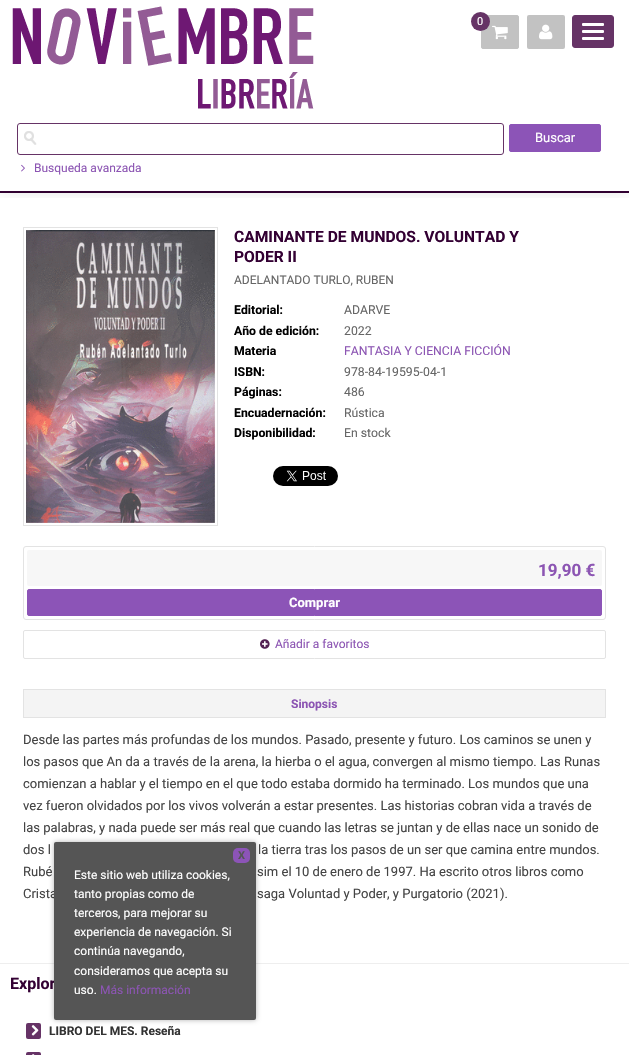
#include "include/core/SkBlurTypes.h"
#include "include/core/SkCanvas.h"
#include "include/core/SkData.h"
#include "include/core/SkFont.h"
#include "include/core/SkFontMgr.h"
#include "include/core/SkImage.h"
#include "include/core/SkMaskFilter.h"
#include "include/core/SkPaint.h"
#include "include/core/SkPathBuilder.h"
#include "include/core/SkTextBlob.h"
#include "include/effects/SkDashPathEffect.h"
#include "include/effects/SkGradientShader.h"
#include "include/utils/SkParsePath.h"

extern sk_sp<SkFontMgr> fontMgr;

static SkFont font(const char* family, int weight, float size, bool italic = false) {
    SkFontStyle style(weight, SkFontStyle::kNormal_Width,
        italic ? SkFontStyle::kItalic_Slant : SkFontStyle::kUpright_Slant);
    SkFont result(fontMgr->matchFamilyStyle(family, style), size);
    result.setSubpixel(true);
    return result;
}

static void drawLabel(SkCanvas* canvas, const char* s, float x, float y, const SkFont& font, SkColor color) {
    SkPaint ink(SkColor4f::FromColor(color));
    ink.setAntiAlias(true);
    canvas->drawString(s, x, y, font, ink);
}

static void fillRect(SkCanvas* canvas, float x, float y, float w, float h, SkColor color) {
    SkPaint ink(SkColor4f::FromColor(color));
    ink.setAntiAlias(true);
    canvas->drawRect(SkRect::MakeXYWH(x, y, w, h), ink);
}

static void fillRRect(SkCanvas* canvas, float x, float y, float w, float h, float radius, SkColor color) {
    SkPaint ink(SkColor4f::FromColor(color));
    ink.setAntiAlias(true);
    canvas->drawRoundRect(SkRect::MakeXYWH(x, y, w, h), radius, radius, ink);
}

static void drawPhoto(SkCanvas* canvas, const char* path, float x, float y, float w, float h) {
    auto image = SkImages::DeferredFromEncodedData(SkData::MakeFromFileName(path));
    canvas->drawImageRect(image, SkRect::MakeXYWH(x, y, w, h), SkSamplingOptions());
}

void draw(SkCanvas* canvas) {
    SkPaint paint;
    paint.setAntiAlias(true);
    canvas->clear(0xFFFFFFFF);
    fillRect(canvas, 0, 191, 629, 2, 0xFF330033);
    canvas->save();
    canvas->clipRect(SkRect::MakeXYWH(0, 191, 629, 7));
    paint.setColor(0x29000000);
    paint.setMaskFilter(SkMaskFilter::MakeBlur(kNormal_SkBlurStyle, 8.5f));
    canvas->drawRect(SkRect::MakeXYWH(0, -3, 629, 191), paint);
    paint.setMaskFilter(nullptr);
    canvas->restore();
    drawPhoto(canvas, "assets/img1.png", 12, 6, 302, 103);
    paint.setColor(0xFFC2C2C2);
    canvas->drawRoundRect(SkRect::MakeXYWH(481.5f, 15.5f, 37, 33), 1.5f, 1.5f, paint);
    paint.setStroke(true);
    paint.setStrokeWidth(1);
    canvas->drawRoundRect(SkRect::MakeXYWH(481.5f, 15.5f, 37, 33), 1.5f, 1.5f, paint);
    paint.setStroke(false);
    paint.setColor(0xFF663366);
    canvas->drawCircle(480.5f, 21.5f, 9.5f, paint);
    SkFont font1 = font("Roboto", 400, 11);
    drawLabel(canvas, "0", 477, 25, font1, 0xFFFFFFFF);
    drawPhoto(canvas, "assets/img2.png", 492, 25, 16, 15);
    fillRRect(canvas, 527, 15, 38, 34, 2, 0xFFC2C2C2);
    drawPhoto(canvas, "assets/img3.png", 539, 24, 14, 16);
    canvas->drawRoundRect(SkRect::MakeXYWH(572.5f, 15.5f, 41, 32), 2.5f, 2.5f, paint);
    paint.setStroke(true);
    canvas->drawRoundRect(SkRect::MakeXYWH(572.5f, 15.5f, 41, 32), 2.5f, 2.5f, paint);
    fillRRect(canvas, 582, 23, 22, 3, 1, 0xFFFFFFFF);
    fillRRect(canvas, 582, 30, 22, 3, 1, 0xFFFFFFFF);
    fillRRect(canvas, 582, 37, 22, 3, 1, 0xFFFFFFFF);
    drawPhoto(canvas, "assets/img4.png", 24, 131, 13, 14);
    canvas->drawRoundRect(SkRect::MakeXYWH(17.5f, 123.5f, 486, 31), 2.5f, 2.5f, paint);
    paint.setStroke(false);
    paint.setColor(0xFF8C54B7);
    canvas->drawRoundRect(SkRect::MakeXYWH(509.5f, 124.5f, 91, 27), 1.5f, 1.5f, paint);
    paint.setStroke(true);
    canvas->drawRoundRect(SkRect::MakeXYWH(509.5f, 124.5f, 91, 27), 1.5f, 1.5f, paint);
    SkFont font2 = font("Roboto", 400, 13);
    drawLabel(canvas, "Buscar", 535, 142, font2, 0xFFFFFFFF);
    drawPhoto(canvas, "assets/img5.png", 21, 164, 4, 8);
    SkFont font3 = font("Roboto", 400, 12);
    drawLabel(canvas, "Busqueda avanzada", 34, 172, font3, 0xFF8C55B3);
    paint.setColor(0xFFE3E3E3);
    canvas->drawRect(SkRect::MakeXYWH(23.5f, 227.5f, 194, 298), paint);
    drawPhoto(canvas, "assets/img6.png", 26, 230, 189, 293);
    SkFont font4 = font("Roboto", 700, 15.6f);
    drawLabel(canvas, "CAMINANTE DE MUNDOS. VOLUNTAD Y", 234, 242, font4, 0xFF330033);
    drawLabel(canvas, "PODER II", 234, 262, font4, 0xFF330033);
    drawLabel(canvas, "ADELANTADO TURLO, RUBEN", 234, 284, font3, 0xFF666666);
    SkFont font5 = font("Roboto", 700, 12.25f);
    drawLabel(canvas, "Editorial:", 234, 314, font5, 0xFF000000);
    SkFont font6 = font("Roboto", 400, 12.25f);
    drawLabel(canvas, "ADARVE", 344, 314, font6, 0xFF666666);
    drawLabel(canvas, "Año de edición:", 234, 335, font5, 0xFF000000);
    drawLabel(canvas, "2022", 344, 335, font6, 0xFF666666);
    drawLabel(canvas, "Materia", 234, 355, font5, 0xFF000000);
    drawLabel(canvas, "FANTASIA Y CIENCIA FICCIÓN", 344, 355, font6, 0xFF8C55B3);
    drawLabel(canvas, "ISBN:", 234, 376, font5, 0xFF000000);
    drawLabel(canvas, "978-84-19595-04-1", 344, 376, font6, 0xFF666666);
    drawLabel(canvas, "Páginas:", 234, 396, font5, 0xFF000000);
    drawLabel(canvas, "486", 344, 396, font6, 0xFF666666);
    drawLabel(canvas, "Encuadernación:", 234, 417, font5, 0xFF000000);
    drawLabel(canvas, "Rústica", 344, 417, font6, 0xFF666666);
    drawLabel(canvas, "Disponibilidad:", 234, 437, font5, 0xFF000000);
    drawLabel(canvas, "En stock", 344, 437, font6, 0xFF666666);
    drawPhoto(canvas, "assets/img7.png", 273, 466, 65, 20);
    canvas->drawRoundRect(SkRect::MakeXYWH(23.5f, 546.5f, 582, 73), 2.5f, 2.5f, paint);
    fillRRect(canvas, 27, 550, 575, 36, 2, 0xFFF7F7F7);
    SkFont font7 = font("Roboto", 700, 17);
    drawLabel(canvas, "19,90 €", 538, 576, font7, 0xFF8C55B3);
    paint.setStroke(false);
    paint.setColor(0xFF8C54B7);
    canvas->drawRoundRect(SkRect::MakeXYWH(27.5f, 589.5f, 574, 26), 1.5f, 1.5f, paint);
    paint.setStroke(true);
    canvas->drawRoundRect(SkRect::MakeXYWH(27.5f, 589.5f, 574, 26), 1.5f, 1.5f, paint);
    SkFont font8 = font("Roboto", 700, 13);
    drawLabel(canvas, "Comprar", 289, 607, font8, 0xFFFFFFFF);
    paint.setColor(0xFFE3E3E3);
    canvas->drawRoundRect(SkRect::MakeXYWH(23.5f, 630.5f, 582, 28), 1.5f, 1.5f, paint);
    drawPhoto(canvas, "assets/img8.png", 260, 639, 10, 10);
    drawLabel(canvas, "Añadir a favoritos", 275, 648, font3, 0xFF8C55B3);
    paint.setStroke(false);
    paint.setColor(0xFFF4F4F4);
    canvas->drawRect(SkRect::MakeXYWH(23.5f, 689.5f, 582, 28), paint);
    paint.setStroke(true);
    paint.setColor(0xFFE3E3E3);
    canvas->drawRect(SkRect::MakeXYWH(23.5f, 689.5f, 582, 28), paint);
    SkFont font9 = font("Roboto", 700, 12);
    drawLabel(canvas, "Sinopsis", 291, 708, font9, 0xFF8C55B3);
    drawLabel(canvas, "Desde las partes más profundas de los mundos. Pasado, presente y futuro. Los caminos se unen y", 23, 744, font2, 0xFF444444);
    drawLabel(canvas, "los pasos que An da a través de la arena, la hierba o el agua, convergen al mismo tiempo. Las Runas", 23, 766, font2, 0xFF444444);
    drawLabel(canvas, "comienzan a hablar y el tiempo en el que todo estaba dormido ha terminado. Los mundos que una", 23, 788, font2, 0xFF444444);
    drawLabel(canvas, "vez fueron olvidados por los vivos volverán a estar presentes. Las historias cobran vida a través de", 23, 810, font2, 0xFF444444);
    drawLabel(canvas, "las palabras, y nada puede ser más real que cuando las letras se juntan y de ellas nace un sonido de", 23, 832, font2, 0xFF444444);
    drawLabel(canvas, "dos l", 23, 854, font2, 0xFF444444);
    drawLabel(canvas, "la tierra tras los pasos de un ser que camina entre mundos.", 258, 854, font2, 0xFF444444);
    drawLabel(canvas, "Rubé", 23, 876, font2, 0xFF444444);
    drawLabel(canvas, "sim el 10 de enero de 1997. Ha escrito otros libros como", 257, 876, font2, 0xFF444444);
    drawLabel(canvas, "Crista", 23, 898, font2, 0xFF444444);
    drawLabel(canvas, "saga Voluntad y Poder, y Purgatorio (2021).", 257, 898, font2, 0xFF444444);
    fillRect(canvas, 0, 963, 629, 1, 0xFFEEEEEE);
    SkFont font10 = font("Roboto", 700, 16);
    drawLabel(canvas, "Explor", 10, 989, font10, 0xFF330033);
    fillRRect(canvas, 26, 1023, 15, 16, 2, 0xFF663366);
    drawPhoto(canvas, "assets/img9.png", 31, 1025, 8, 11);
    drawLabel(canvas, "LIBRO DEL MES. Reseña", 49, 1035, font9, 0xFF333333);
    fillRRect(canvas, 26, 1052, 15, 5, 2, 0xFF663366);
    drawPhoto(canvas, "assets/img10.png", 32, 1054, 3, 1);
    paint.setStroke(false);
    paint.setColor(0x4D000000);
    paint.setMaskFilter(SkMaskFilter::MakeBlur(kNormal_SkBlurStyle, 2.5f));
    canvas->drawRoundRect(SkRect::MakeXYWH(54, 842, 202, 178), 2, 2, paint);
    paint.setMaskFilter(nullptr);
    fillRRect(canvas, 54, 842, 202, 178, 2, 0xFF555555);
    fillRRect(canvas, 233, 848, 17, 15, 5, 0xFF8C54B7);
    SkFont font11 = font("Roboto", 700, 11);
    drawLabel(canvas, "X", 238, 859, font11, 0xFF555555);
    drawLabel(canvas, "Este sitio web utiliza cookies,", 74, 879, font3, 0xFFFFFFFF);
    drawLabel(canvas, "tanto propias como de", 74, 898, font3, 0xFFFFFFFF);
    drawLabel(canvas, "terceros, para mejorar su", 74, 917, font3, 0xFFFFFFFF);
    drawLabel(canvas, "experiencia de navegación. Si", 74, 936, font3, 0xFFFFFFFF);
    drawLabel(canvas, "continúa navegando,", 74, 955, font3, 0xFFFFFFFF);
    drawLabel(canvas, "consideramos que acepta su", 74, 975, font3, 0xFFFFFFFF);
    drawLabel(canvas, "uso.", 74, 994, font3, 0xFFFFFFFF);
    drawLabel(canvas, "Más información", 100, 994, font3, 0xFF8C55B3);
}
